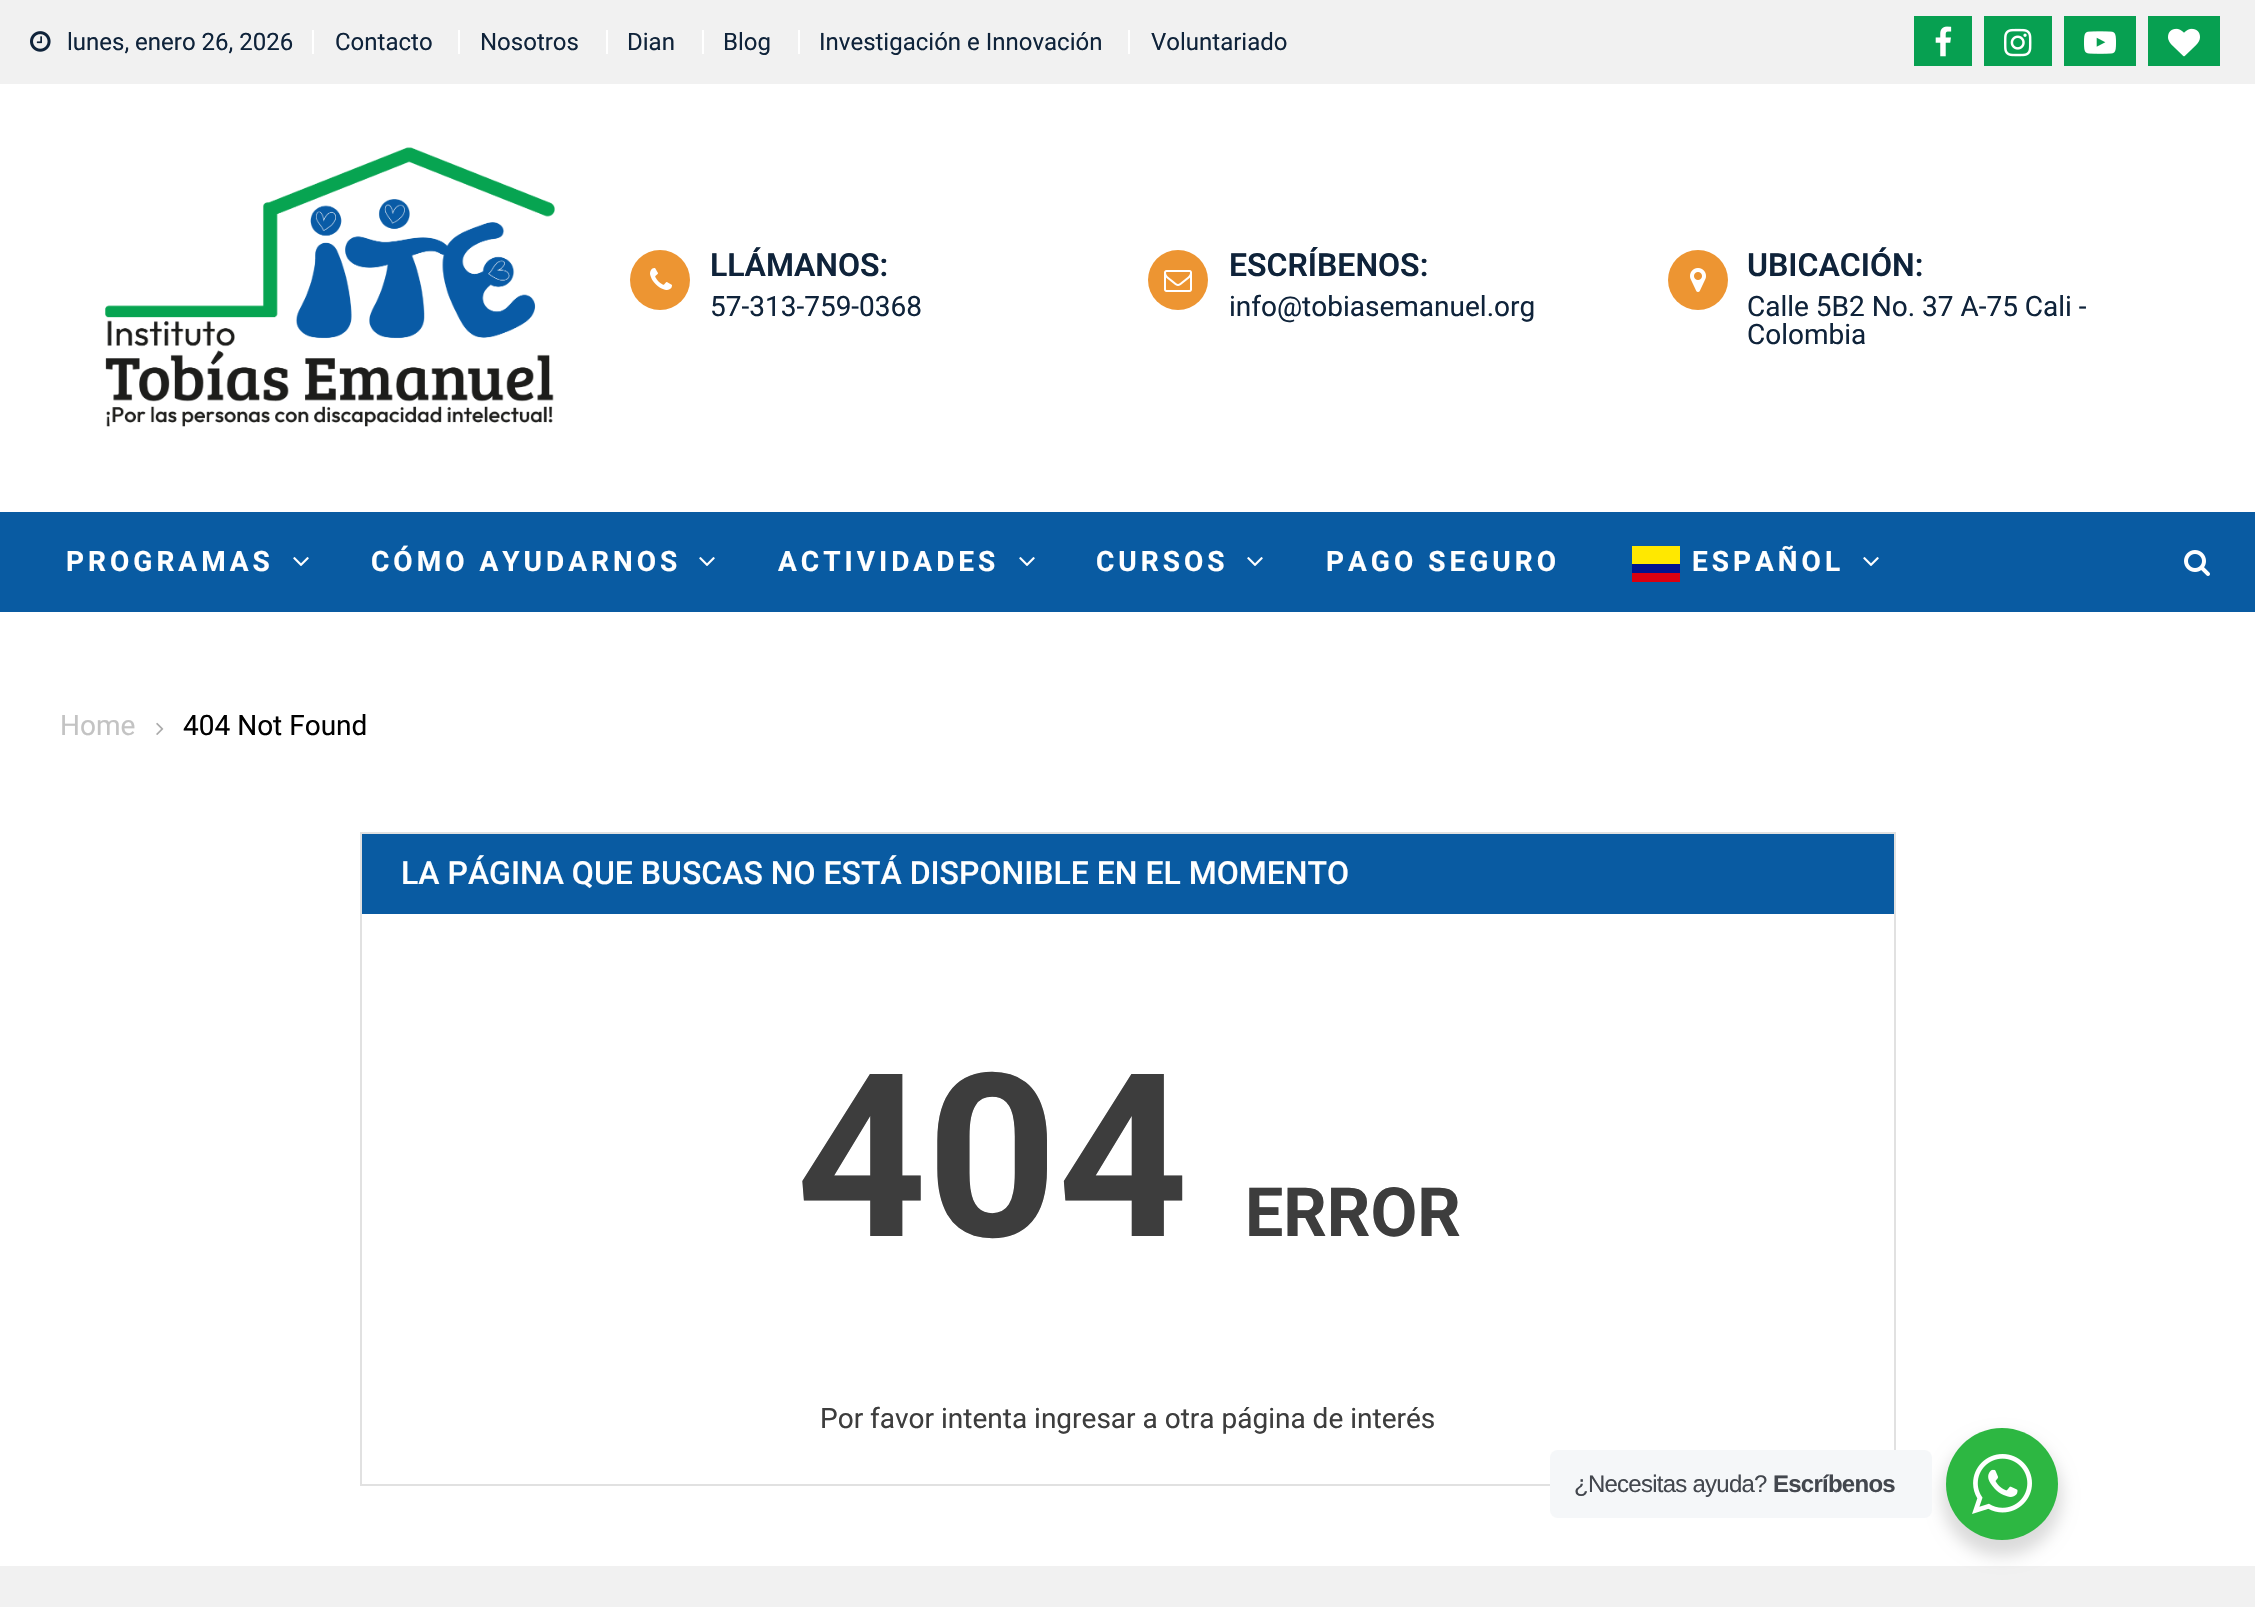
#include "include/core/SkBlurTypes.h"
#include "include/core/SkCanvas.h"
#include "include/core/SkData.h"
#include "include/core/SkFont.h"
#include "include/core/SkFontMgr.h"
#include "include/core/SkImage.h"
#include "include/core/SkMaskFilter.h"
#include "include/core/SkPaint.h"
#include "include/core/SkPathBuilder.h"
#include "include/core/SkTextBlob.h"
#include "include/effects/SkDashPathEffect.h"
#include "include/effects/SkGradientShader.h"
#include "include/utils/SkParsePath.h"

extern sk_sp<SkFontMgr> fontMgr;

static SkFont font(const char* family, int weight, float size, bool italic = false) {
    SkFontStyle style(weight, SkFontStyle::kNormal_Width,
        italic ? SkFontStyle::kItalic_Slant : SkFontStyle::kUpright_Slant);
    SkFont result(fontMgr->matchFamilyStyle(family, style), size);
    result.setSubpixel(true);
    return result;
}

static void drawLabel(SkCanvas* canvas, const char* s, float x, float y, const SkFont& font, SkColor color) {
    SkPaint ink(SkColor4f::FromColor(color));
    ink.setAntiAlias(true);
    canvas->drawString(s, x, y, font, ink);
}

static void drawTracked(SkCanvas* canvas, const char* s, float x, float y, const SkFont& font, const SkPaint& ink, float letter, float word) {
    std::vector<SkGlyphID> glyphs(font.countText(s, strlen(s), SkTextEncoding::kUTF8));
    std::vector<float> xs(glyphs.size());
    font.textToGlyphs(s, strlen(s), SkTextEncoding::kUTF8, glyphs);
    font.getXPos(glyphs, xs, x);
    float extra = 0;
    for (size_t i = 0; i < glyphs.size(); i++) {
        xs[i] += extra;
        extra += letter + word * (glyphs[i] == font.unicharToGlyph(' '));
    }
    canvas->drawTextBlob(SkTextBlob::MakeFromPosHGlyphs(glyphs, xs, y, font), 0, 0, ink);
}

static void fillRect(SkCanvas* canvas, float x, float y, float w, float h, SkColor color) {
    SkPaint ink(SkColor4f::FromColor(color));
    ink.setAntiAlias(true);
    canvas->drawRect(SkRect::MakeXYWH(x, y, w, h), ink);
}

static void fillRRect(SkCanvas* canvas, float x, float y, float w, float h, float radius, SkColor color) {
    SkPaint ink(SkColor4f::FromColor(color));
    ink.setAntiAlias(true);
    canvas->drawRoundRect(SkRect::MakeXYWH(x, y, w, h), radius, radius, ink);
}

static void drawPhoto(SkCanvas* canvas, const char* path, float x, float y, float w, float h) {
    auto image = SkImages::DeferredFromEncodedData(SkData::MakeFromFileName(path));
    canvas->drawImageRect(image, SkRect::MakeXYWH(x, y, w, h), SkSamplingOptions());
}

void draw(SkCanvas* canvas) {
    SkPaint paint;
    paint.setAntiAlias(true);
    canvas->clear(0xFFFFFFFF);
    fillRect(canvas, 0, 0, 2255, 84, 0xFFF1F1F1);
    drawPhoto(canvas, "assets/img1.png", 30, 31, 21, 21);
    SkFont font1 = font("Roboto", 400, 24);
    drawLabel(canvas, "lunes, enero 26, 2026", 67, 50, font1, 0xFF0F233A);
    fillRect(canvas, 312, 30, 2, 24, 0xFFFFFFFF);
    drawLabel(canvas, "Contacto", 335, 50, font1, 0xFF0F233A);
    fillRect(canvas, 458, 30, 2, 24, 0xFFFFFFFF);
    drawLabel(canvas, "Nosotros", 480, 50, font1, 0xFF0F233A);
    fillRect(canvas, 606, 30, 2, 24, 0xFFFFFFFF);
    drawLabel(canvas, "Dian", 627, 50, font1, 0xFF0F233A);
    fillRect(canvas, 702, 30, 2, 24, 0xFFFFFFFF);
    drawLabel(canvas, "Blog", 723, 50, font1, 0xFF0F233A);
    fillRect(canvas, 798, 30, 2, 24, 0xFFFFFFFF);
    drawLabel(canvas, "Investigación e Innovación", 819, 50, font1, 0xFF0F233A);
    fillRect(canvas, 1128, 30, 2, 24, 0xFFFFFFFF);
    drawLabel(canvas, "Voluntariado", 1151, 50, font1, 0xFF0F233A);
    fillRect(canvas, 1914, 16, 58, 50, 0xFF07A051);
    drawPhoto(canvas, "assets/img2.png", 1935, 26, 17, 31);
    fillRect(canvas, 1984, 16, 68, 50, 0xFF07A051);
    drawPhoto(canvas, "assets/img3.png", 2004, 28, 28, 29);
    fillRect(canvas, 2064, 16, 72, 50, 0xFF07A051);
    drawPhoto(canvas, "assets/img4.png", 2084, 31, 32, 23);
    fillRect(canvas, 2148, 16, 72, 50, 0xFF07A051);
    drawPhoto(canvas, "assets/img5.png", 2168, 28, 32, 29);
    drawPhoto(canvas, "assets/img6.png", 105, 147, 450, 280);
    paint.setColor(0xFFED9532);
    canvas->drawCircle(660, 280, 30, paint);
    drawPhoto(canvas, "assets/img7.png", 650, 268, 22, 22);
    SkFont font2 = font("Roboto", 600, 32);
    drawLabel(canvas, "LLÁMANOS:", 710, 276, font2, 0xFF0F233A);
    SkFont font3 = font("Roboto", 400, 28);
    drawLabel(canvas, "57-313-759-0368", 710, 316, font3, 0xFF0F233A);
    canvas->drawCircle(1178, 280, 30, paint);
    drawPhoto(canvas, "assets/img8.png", 1164, 270, 28, 22);
    drawLabel(canvas, "ESCRÍBENOS:", 1229, 276, font2, 0xFF0F233A);
    drawLabel(canvas, "info@tobiasemanuel.org", 1229, 316, font3, 0xFF0F233A);
    canvas->drawCircle(1698, 280, 30, paint);
    drawPhoto(canvas, "assets/img9.png", 1690, 268, 16, 24);
    drawLabel(canvas, "UBICACIÓN:", 1747, 276, font2, 0xFF0F233A);
    drawLabel(canvas, "Calle 5B2 No. 37 A-75 Cali -", 1747, 316, font3, 0xFF0F233A);
    drawLabel(canvas, "Colombia", 1747, 344, font3, 0xFF0F233A);
    fillRect(canvas, 0, 512, 2255, 100, 0xFF095BA2);
    SkFont font4 = font("Roboto", 700, 28);
    paint.setColor(0xFFFFFFFF);
    drawTracked(canvas, "PROGRAMAS", 66, 571, font4, paint, 4, 0);
    drawPhoto(canvas, "assets/img10.png", 293, 557, 16, 9);
    drawTracked(canvas, "CÓMO AYUDARNOS", 371, 571, font4, paint, 4, 0);
    drawPhoto(canvas, "assets/img10.png", 699, 557, 16, 9);
    drawTracked(canvas, "ACTIVIDADES", 778, 571, font4, paint, 4, 0);
    drawPhoto(canvas, "assets/img10.png", 1019, 557, 16, 9);
    drawTracked(canvas, "CURSOS", 1096, 571, font4, paint, 4, 0);
    drawPhoto(canvas, "assets/img10.png", 1247, 557, 16, 9);
    drawTracked(canvas, "PAGO SEGURO", 1326, 571, font4, paint, 4, 0);
    fillRect(canvas, 1632, 546, 48, 18, 0xFFFFE800);
    drawTracked(canvas, "ESPAÑOL", 1692, 571, font4, paint, 4, 0);
    drawPhoto(canvas, "assets/img10.png", 1863, 557, 16, 9);
    fillRect(canvas, 1632, 564, 48, 9, 0xFF00148E);
    fillRect(canvas, 1632, 573, 48, 9, 0xFFDA0010);
    drawPhoto(canvas, "assets/img11.png", 2184, 550, 26, 26);
    drawLabel(canvas, "Home", 60, 735, font3, 0xFFC3C3C3);
    drawPhoto(canvas, "assets/img12.png", 156, 722, 8, 13);
    drawLabel(canvas, "404 Not Found", 183, 735, font3, 0xFF000000);
    paint.setStroke(true);
    paint.setStrokeWidth(2);
    paint.setColor(0xFFE1E1E1);
    canvas->drawRect(SkRect::MakeXYWH(361, 833, 1534, 652), paint);
    fillRect(canvas, 362, 834, 1532, 80, 0xFF095BA2);
    SkFont font5 = font("Roboto", 500, 32);
    drawLabel(canvas, "LA PÁGINA QUE BUSCAS NO ESTÁ DISPONIBLE EN EL MOMENTO", 401, 884, font5, 0xFFFFFFFF);
    SkFont font6 = font("Roboto", 700, 228);
    drawLabel(canvas, "404", 796, 1236, font6, 0xFF3D3D3D);
    SkFont font7 = font("Roboto", 700, 68);
    drawLabel(canvas, "ERROR", 1245, 1236, font7, 0xFF3D3D3D);
    drawLabel(canvas, "Por favor intenta ingresar a otra página de interés", 820, 1428, font3, 0xFF3D3D3D);
    fillRect(canvas, 0, 1566, 2255, 41, 0xFFF1F1F1);
    paint.setStroke(false);
    paint.setColor(0x24000000);
    paint.setMaskFilter(SkMaskFilter::MakeBlur(kNormal_SkBlurStyle, 8));
    canvas->drawRoundRect(SkRect::MakeXYWH(1942, 1436, 120, 120), 60, 60, paint);
    paint.setMaskFilter(nullptr);
    fillRRect(canvas, 1550, 1450, 382, 68, 8, 0xFFF5F7F9);
    SkFont font8 = font("Liberation Sans", 400, 24);
    paint.setColor(0xFF43474E);
    drawTracked(canvas, "¿Necesitas ayuda?", 1574, 1492, font8, paint, -0.75f, 0);
    SkFont font9 = font("Liberation Sans", 700, 24);
    drawTracked(canvas, "Escríbenos", 1773, 1492, font9, paint, -0.75f, 0);
    paint.setColor(0xFF2DB742);
    canvas->drawCircle(2002, 1484, 56, paint);
    drawPhoto(canvas, "assets/img13.png", 1972, 1454, 60, 60);
}
